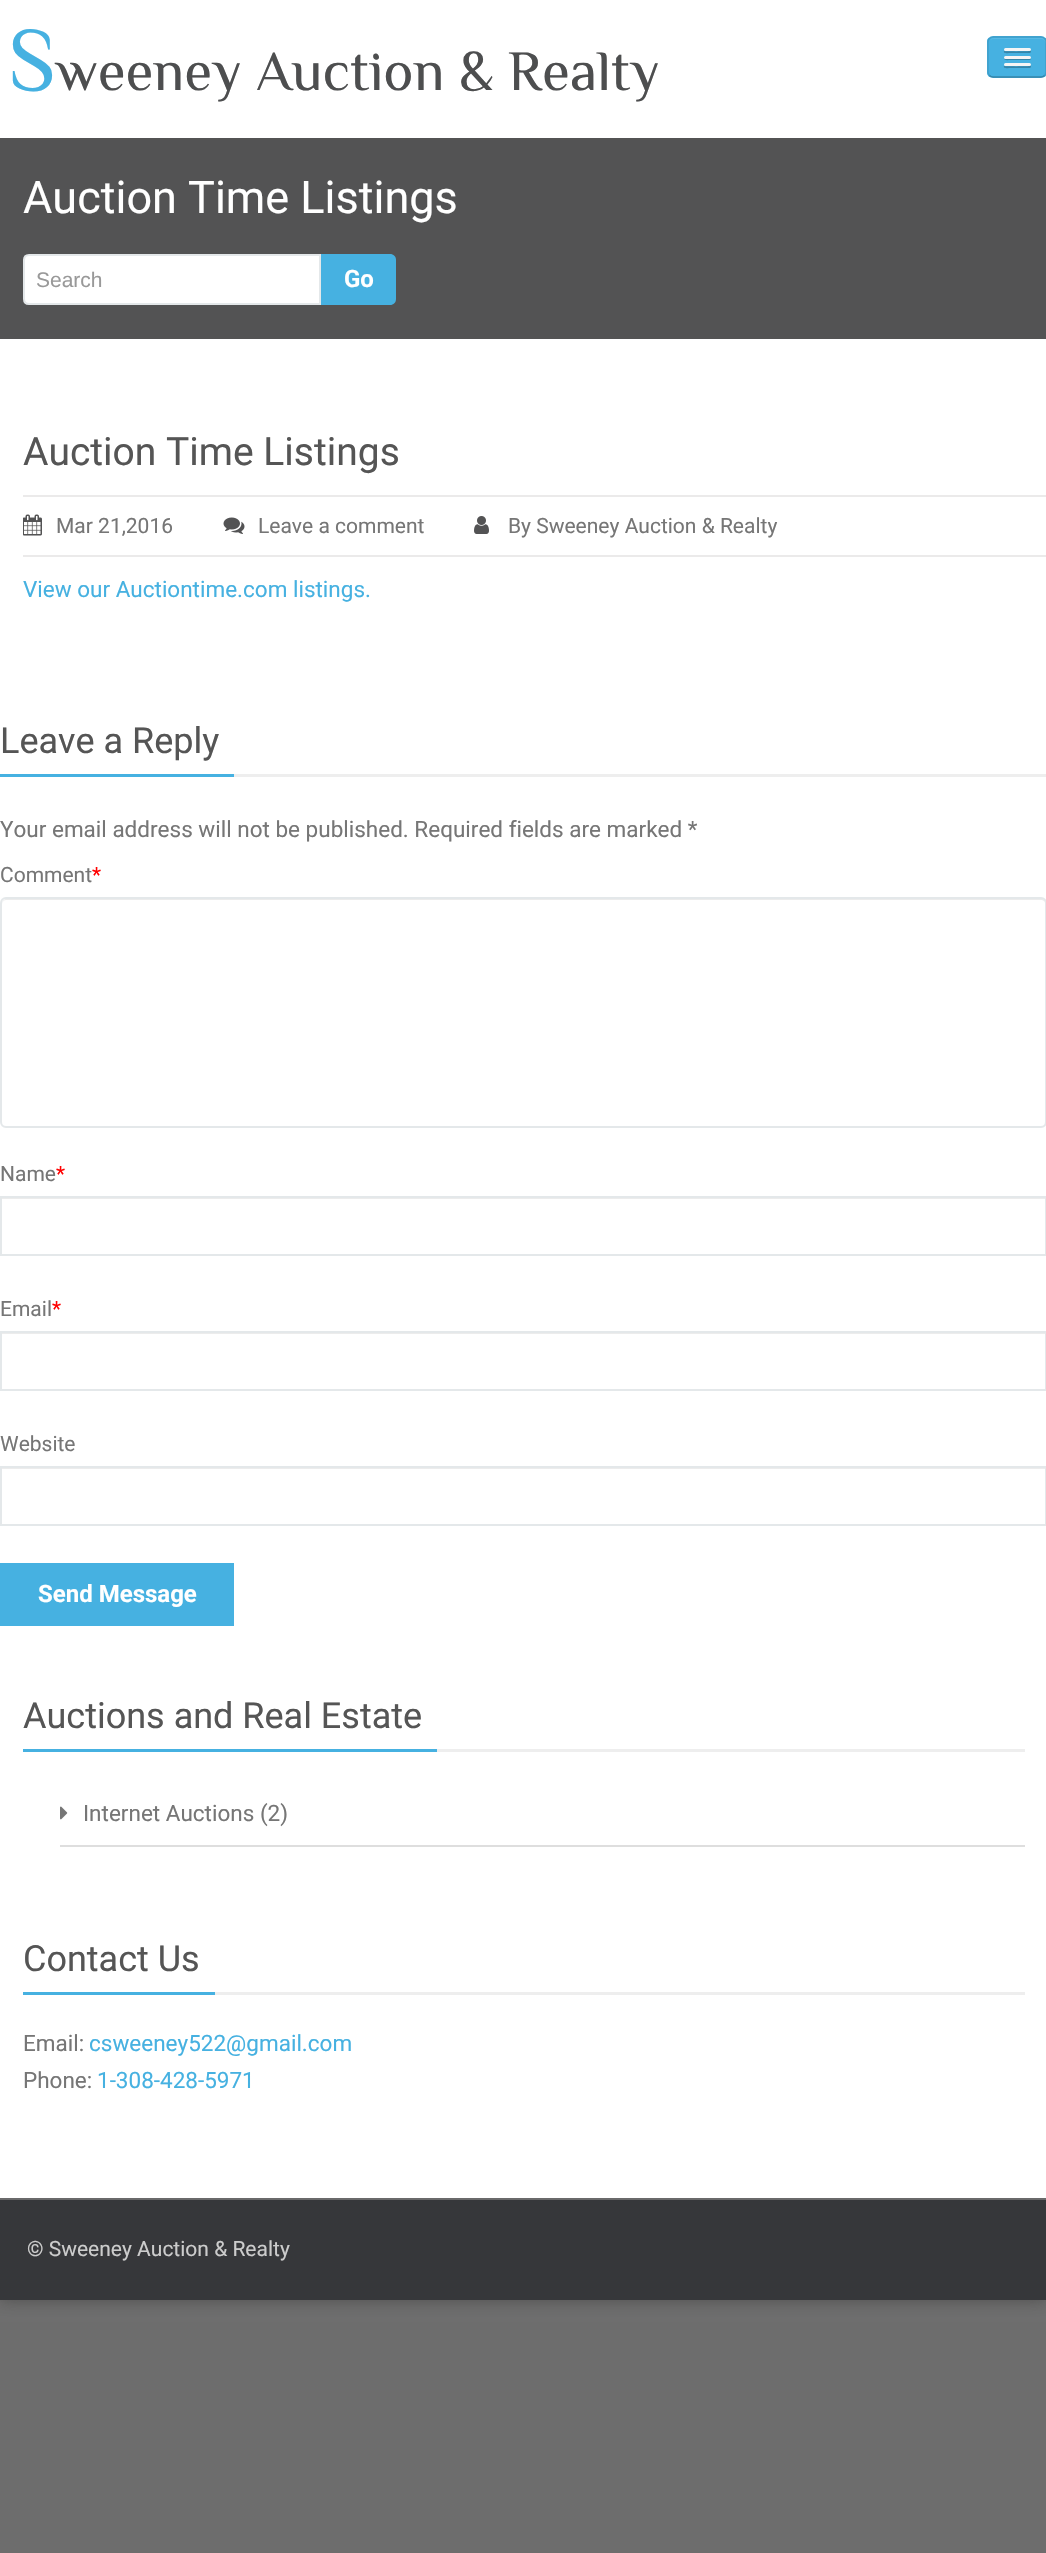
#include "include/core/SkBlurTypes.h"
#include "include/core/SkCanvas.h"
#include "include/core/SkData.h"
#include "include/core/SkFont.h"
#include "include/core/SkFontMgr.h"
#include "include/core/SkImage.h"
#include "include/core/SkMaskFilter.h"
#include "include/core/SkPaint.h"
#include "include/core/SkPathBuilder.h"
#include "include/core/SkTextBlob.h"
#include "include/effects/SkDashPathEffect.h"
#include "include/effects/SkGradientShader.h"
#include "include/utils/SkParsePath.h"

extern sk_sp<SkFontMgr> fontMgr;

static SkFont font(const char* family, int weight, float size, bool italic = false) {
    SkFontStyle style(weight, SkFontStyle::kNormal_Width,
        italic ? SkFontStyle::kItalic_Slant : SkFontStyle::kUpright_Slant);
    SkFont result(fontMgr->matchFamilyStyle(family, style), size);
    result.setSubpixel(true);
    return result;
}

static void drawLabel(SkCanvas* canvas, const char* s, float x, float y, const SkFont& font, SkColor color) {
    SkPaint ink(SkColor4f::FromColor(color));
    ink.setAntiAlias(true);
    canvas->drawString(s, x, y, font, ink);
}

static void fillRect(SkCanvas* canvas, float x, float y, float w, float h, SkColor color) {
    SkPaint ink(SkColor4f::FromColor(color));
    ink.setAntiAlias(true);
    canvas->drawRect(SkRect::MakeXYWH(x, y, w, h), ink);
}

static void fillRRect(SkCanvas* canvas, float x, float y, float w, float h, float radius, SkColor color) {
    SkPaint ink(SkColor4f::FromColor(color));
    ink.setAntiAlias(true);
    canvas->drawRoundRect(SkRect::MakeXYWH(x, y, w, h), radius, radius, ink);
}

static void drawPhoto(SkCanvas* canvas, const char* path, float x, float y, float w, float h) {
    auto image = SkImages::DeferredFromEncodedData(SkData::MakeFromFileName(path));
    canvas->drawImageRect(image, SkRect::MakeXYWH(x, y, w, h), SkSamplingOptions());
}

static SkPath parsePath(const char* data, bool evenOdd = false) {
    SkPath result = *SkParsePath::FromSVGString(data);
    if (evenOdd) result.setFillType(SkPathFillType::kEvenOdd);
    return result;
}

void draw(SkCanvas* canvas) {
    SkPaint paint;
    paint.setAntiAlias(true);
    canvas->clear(0xFF6D6D6D);
    paint.setColor(0x80303030);
    paint.setMaskFilter(SkMaskFilter::MakeBlur(kNormal_SkBlurStyle, 7.5f));
    canvas->drawRect(SkRect::MakeXYWH(0, 0, 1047, 2300), paint);
    paint.setMaskFilter(nullptr);
    fillRect(canvas, 0, 0, 1046, 2198, 0xFFFFFFFF);
    SkFont font1 = font("Philosopher", 400, 90);
    drawLabel(canvas, "S", 8, 90, font1, 0xFF46B1E1);
    SkFont font2 = font("Philosopher", 400, 57);
    drawLabel(canvas, "weeney Auction & Realty", 55, 90, font2, 0xFF4D4E4F);
    fillRRect(canvas, 987, 36, 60, 42, 6, 0xFF46B1E1);
    canvas->save();
    canvas->clipPath(parsePath("M993 36H1041C1044.5 36 1047 38.5 1047 42V72C1047 75.5 1044.5 78 1041 78H993C989.5 78 987 75.5 987 72V42C987 38.5 989.5 36 993 36Z"), true);
    fillRect(canvas, 987, 38, 59, 39, 0xFF46B1E1);
    canvas->restore();
    paint.setColor(0xFF59B9E4);
    canvas->drawPath(parsePath("M993 39H1041C1043 39 1046 41 1046 44V43C1046 40 1044 38 1041 38H994C992 38 991 39 990 40Z"), paint);
    paint.setStroke(true);
    paint.setStrokeWidth(1.5f);
    paint.setColor(0x40000000);
    canvas->drawPath(parsePath("M1044.5 75.5C1043.5 76.5 1042.5 77 1041 77H993C991.5 77 990.5 76.5 989.5 75.5"), paint);
    paint.setColor(0x1A000000);
    canvas->drawPath(parsePath("M989.5 75.5C988.5 74.5 988 73.5 988 72V42C988 40.5 988.5 39.5 989.5 38.5C990.5 37.5 991.5 37 993 37H1041C1042.5 37 1043.5 37.5 1044.5 38.5C1045.5 39.5 1046 40.5 1046 42V72C1046 73.5 1045.5 74.5 1044.5 75.5"), paint);
    paint.setStroke(false);
    paint.setColor(0xFF3585A9);
    canvas->drawPath(parsePath("M1004 51C1002.5 54 1009.5 53 1009.5 53H1030C1031 52.5 1031.5 51 1030.5 50L1029 51C1027 51.5 1005 51.5 1004 51Z"), paint);
    fillRRect(canvas, 1004, 48, 27, 3, 1.5f, 0xFFF5F5F5);
    canvas->drawPath(parsePath("M1004 58C1003.5 61 1009 60 1009.5 60H1029.5C1031 60 1031.5 58 1030.5 57.5L1029.5 58.5C1028 59 1004.5 58.5 1004 58Z"), paint);
    fillRRect(canvas, 1004, 56, 27, 3, 1.5f, 0xFFF5F5F5);
    canvas->drawPath(parsePath("M1004 66C1002.5 69 1009.5 68 1009.5 68H1030C1031 67.5 1031.5 66 1030.5 65L1029 66C1027 66.5 1005 66.5 1004 66Z"), paint);
    fillRRect(canvas, 1004, 63, 27, 3, 1.5f, 0xFFF5F5F5);
    fillRect(canvas, 0, 138, 1046, 201, 0xFF535354);
    SkFont font3 = font("Roboto", 400, 45);
    drawLabel(canvas, "Auction Time Listings", 23, 213, font3, 0xFFFFFFFF);
    paint.setColor(0xFFFFFFFF);
    canvas->drawPath(parsePath("M29 255H320V304H29C26 304 24 302 24 299V260C24 257 26 255 29 255Z"), paint);
    paint.setStroke(true);
    paint.setStrokeWidth(2);
    paint.setColor(0xFFE4E8EA);
    canvas->drawPath(parsePath("M29 255H320V304H29C26 304 24 302 24 299V260C24 257 26 255 29 255Z"), paint);
    SkFont font4 = font("Liberation Sans", 400, 21);
    drawLabel(canvas, "Search", 36, 287, font4, 0xFF999999);
    paint.setStroke(false);
    paint.setColor(0xFF46B1E1);
    canvas->drawPath(parsePath("M321 254H390C393.5 254 396 256.5 396 260V299C396 302.5 393.5 305 390 305H321Z"), paint);
    SkFont font5 = font("Roboto", 700, 24);
    drawLabel(canvas, "Go", 344, 287, font5, 0xFFFFFFFF);
    SkFont font6 = font("Roboto", 400, 39);
    drawLabel(canvas, "Auction Time Listings", 23, 465, font6, 0xFF555555);
    fillRect(canvas, 23, 495, 1023, 2, 0xFFEBEAEA);
    fillRect(canvas, 23, 555, 1023, 2, 0xFFEBEAEA);
    drawPhoto(canvas, "assets/img1.png", 23, 514, 19, 22);
    SkFont font7 = font("Roboto", 400, 21);
    drawLabel(canvas, "Mar 21,2016", 56, 533, font7, 0xFF767676);
    drawPhoto(canvas, "assets/img2.png", 223, 517, 22, 17);
    drawLabel(canvas, "Leave a comment", 258, 533, font7, 0xFF767676);
    drawPhoto(canvas, "assets/img3.png", 474, 516, 15, 18);
    drawLabel(canvas, "By Sweeney Auction & Realty", 508, 533, font7, 0xFF767676);
    SkFont font8 = font("Roboto", 400, 22.5f);
    drawLabel(canvas, "View our Auctiontime.com listings.", 23, 597, font8, 0xFF46B1E1);
    fillRect(canvas, 234, 774, 812, 3, 0xFFEEEEEE);
    fillRect(canvas, 0, 774, 234, 3, 0xFF46B1E1);
    SkFont font9 = font("Roboto", 400, 36);
    drawLabel(canvas, "Leave a Reply", 0, 753, font9, 0xFF555555);
    drawLabel(canvas, "Your email address will not be published. Required fields are marked *", 0, 837, font8, 0xFF767676);
    drawLabel(canvas, "Comment", 0, 882, font7, 0xFF767676);
    drawLabel(canvas, "*", 92, 882, font7, 0xFFFF0000);
    paint.setColor(0xFFECECEC);
    canvas->drawPath(parsePath("M6 900H1041C1043 900 1046 902 1046 904C1046 901 1044 899 1041 899H7C4 899 2 901 2 904C2 902 4 900 6 900Z"), paint);
    paint.setStroke(true);
    paint.setColor(0xFFE4E8EA);
    canvas->drawRoundRect(SkRect::MakeXYWH(1, 898, 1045, 229), 5, 5, paint);
    drawLabel(canvas, "Name", 0, 1181, font7, 0xFF767676);
    drawLabel(canvas, "*", 56, 1181, font7, 0xFFFF0000);
    fillRect(canvas, 2, 1198, 1044, 1, 0xFFECECEC);
    canvas->drawRect(SkRect::MakeXYWH(1, 1197, 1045, 58), paint);
    drawLabel(canvas, "Email", 0, 1316, font7, 0xFF767676);
    drawLabel(canvas, "*", 52, 1316, font7, 0xFFFF0000);
    fillRect(canvas, 2, 1333, 1044, 1, 0xFFECECEC);
    canvas->drawRect(SkRect::MakeXYWH(1, 1332, 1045, 58), paint);
    drawLabel(canvas, "Website", 0, 1451, font7, 0xFF767676);
    fillRect(canvas, 2, 1468, 1044, 1, 0xFFECECEC);
    canvas->drawRect(SkRect::MakeXYWH(1, 1467, 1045, 58), paint);
    fillRect(canvas, 0, 1563, 234, 63, 0xFF46B1E1);
    drawLabel(canvas, "Send Message", 38, 1602, font5, 0xFFFFFFFF);
    fillRect(canvas, 437, 1749, 588, 3, 0xFFEEEEEE);
    fillRect(canvas, 23, 1749, 414, 3, 0xFF46B1E1);
    drawLabel(canvas, "Auctions and Real Estate", 23, 1728, font9, 0xFF555555);
    fillRect(canvas, 60, 1845, 965, 2, 0xFFDEDEDE);
    drawPhoto(canvas, "assets/img4.png", 60, 1806, 8, 14);
    drawLabel(canvas, "Internet Auctions (2)", 83, 1821, font8, 0xFF767676);
    fillRect(canvas, 215, 1992, 810, 3, 0xFFEEEEEE);
    fillRect(canvas, 23, 1992, 192, 3, 0xFF46B1E1);
    drawLabel(canvas, "Contact Us", 23, 1971, font9, 0xFF555555);
    drawLabel(canvas, "Email:", 23, 2051, font8, 0xFF767676);
    drawLabel(canvas, "csweeney522@gmail.com", 89, 2051, font8, 0xFF46B1E1);
    drawLabel(canvas, "Phone:", 23, 2088, font8, 0xFF767676);
    drawLabel(canvas, "1-308-428-5971", 97, 2088, font8, 0xFF46B1E1);
    fillRect(canvas, 0, 2200, 1046, 100, 0xFF36373A);
    fillRect(canvas, 0, 2198, 1046, 2, 0xFF6A6A6B);
    drawLabel(canvas, "© Sweeney Auction & Realty", 27, 2256, font7, 0xFFCCCCCC);
}
